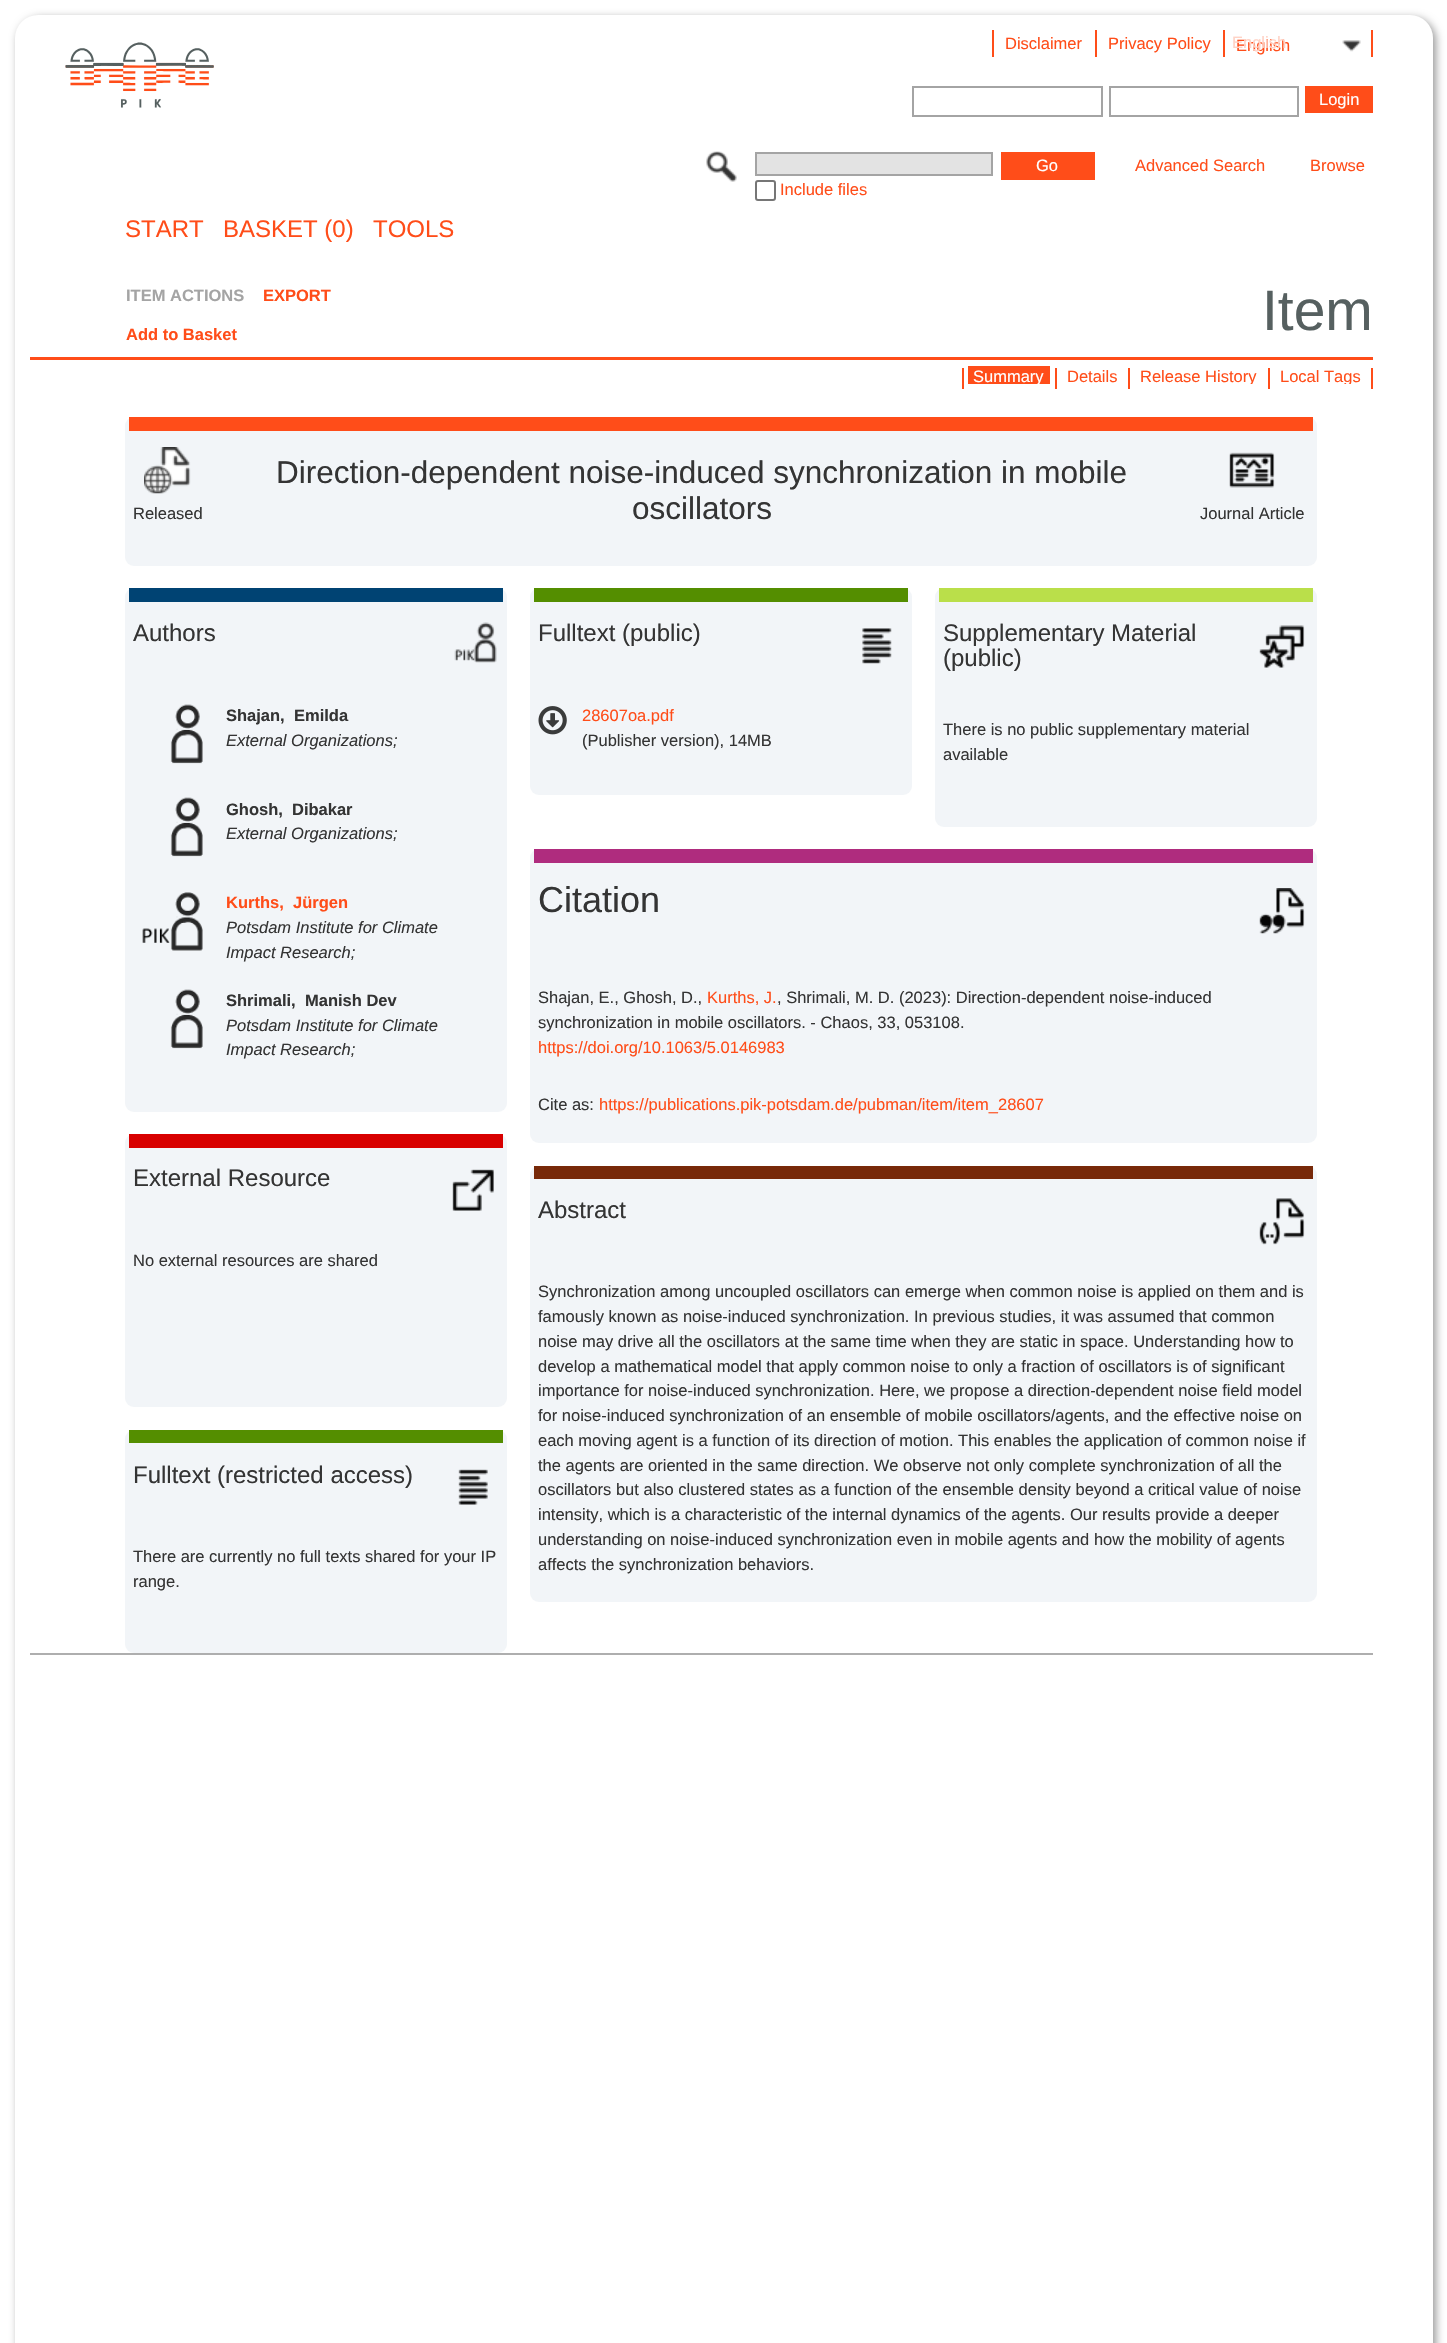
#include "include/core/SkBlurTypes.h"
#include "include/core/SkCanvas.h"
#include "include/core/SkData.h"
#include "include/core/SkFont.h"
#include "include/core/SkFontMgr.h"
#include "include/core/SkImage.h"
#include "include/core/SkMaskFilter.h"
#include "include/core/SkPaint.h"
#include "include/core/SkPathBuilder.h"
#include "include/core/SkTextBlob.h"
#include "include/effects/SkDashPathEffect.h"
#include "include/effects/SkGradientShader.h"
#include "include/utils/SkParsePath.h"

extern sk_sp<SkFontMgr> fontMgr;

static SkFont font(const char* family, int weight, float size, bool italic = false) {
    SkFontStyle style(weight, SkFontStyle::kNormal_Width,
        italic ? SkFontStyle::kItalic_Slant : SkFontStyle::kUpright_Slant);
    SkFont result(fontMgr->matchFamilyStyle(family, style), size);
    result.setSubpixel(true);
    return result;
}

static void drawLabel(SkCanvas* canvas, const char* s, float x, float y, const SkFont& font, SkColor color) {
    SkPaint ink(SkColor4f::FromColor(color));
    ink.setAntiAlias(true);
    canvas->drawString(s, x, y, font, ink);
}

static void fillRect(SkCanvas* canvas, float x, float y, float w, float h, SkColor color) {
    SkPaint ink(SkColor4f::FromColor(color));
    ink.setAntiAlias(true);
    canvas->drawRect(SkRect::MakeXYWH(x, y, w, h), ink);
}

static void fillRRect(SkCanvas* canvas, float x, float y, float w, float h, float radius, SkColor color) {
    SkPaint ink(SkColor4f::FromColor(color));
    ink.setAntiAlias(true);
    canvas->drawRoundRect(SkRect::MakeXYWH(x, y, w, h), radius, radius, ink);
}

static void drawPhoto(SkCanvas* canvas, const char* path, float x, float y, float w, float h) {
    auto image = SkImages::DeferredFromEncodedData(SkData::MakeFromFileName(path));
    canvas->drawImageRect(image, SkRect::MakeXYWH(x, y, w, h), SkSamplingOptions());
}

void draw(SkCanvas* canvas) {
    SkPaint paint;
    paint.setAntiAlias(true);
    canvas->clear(0xFFFFFFFF);
    paint.setColor(0xFF999999);
    paint.setMaskFilter(SkMaskFilter::MakeBlur(kNormal_SkBlurStyle, 4.5f));
    canvas->drawRoundRect(SkRect::MakeXYWH(18, 18, 1418, 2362), 23, 23, paint);
    paint.setMaskFilter(nullptr);
    fillRRect(canvas, 15, 15, 1418, 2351, 23, 0xFFFFFFFF);
    fillRect(canvas, 992, 30, 2, 27, 0xFFFF4D19);
    SkFont font1 = font("Liberation Sans", 400, 16.5f);
    drawLabel(canvas, "Disclaimer", 1005, 49, font1, 0xFFFF4D19);
    fillRect(canvas, 1095, 30, 2, 27, 0xFFFF4D19);
    drawLabel(canvas, "Privacy Policy", 1108, 49, font1, 0xFFFF4D19);
    fillRect(canvas, 1223, 30, 2, 27, 0xFFFF4D19);
    drawLabel(canvas, "English", 1236, 51, font1, 0xFFFF4D19);
    drawLabel(canvas, "English", 1232, 48, font1, 0xFFFFD3C6);
    drawPhoto(canvas, "assets/img1.png", 1342, 40, 19, 12);
    fillRect(canvas, 1371, 30, 2, 27, 0xFFFF4D19);
    paint.setStroke(true);
    paint.setStrokeWidth(2);
    paint.setColor(0xFFA4A4A4);
    canvas->drawRect(SkRect::MakeXYWH(913, 87, 189, 29), paint);
    canvas->drawRect(SkRect::MakeXYWH(1110, 87, 188, 29), paint);
    fillRect(canvas, 1305, 86, 68, 27, 0xFFFF4D19);
    drawLabel(canvas, "Login", 1319, 105, font1, 0xFFFFFFFF);
    drawPhoto(canvas, "assets/img2.png", 65, 42, 149, 66);
    drawPhoto(canvas, "assets/img3.png", 706, 151, 31, 31);
    fillRect(canvas, 1001, 152, 94, 28, 0xFFFF4D19);
    drawLabel(canvas, "Go", 1036, 171, font1, 0xFFFFFFFF);
    drawLabel(canvas, "Advanced Search", 1135, 171, font1, 0xFFFF4D19);
    drawLabel(canvas, "Browse", 1310, 171, font1, 0xFFFF4D19);
    paint.setStroke(false);
    paint.setColor(0xFFE3E3E3);
    canvas->drawRect(SkRect::MakeXYWH(756, 153, 236, 22), paint);
    paint.setStroke(true);
    paint.setColor(0xFFA4A4A4);
    canvas->drawRect(SkRect::MakeXYWH(756, 153, 236, 22), paint);
    paint.setColor(0xFF767676);
    canvas->drawRoundRect(SkRect::MakeXYWH(756, 181, 19, 19), 2, 2, paint);
    drawLabel(canvas, "Include files", 780, 195, font1, 0xFFFF4D19);
    SkFont font2 = font("Liberation Sans", 400, 24);
    drawLabel(canvas, "START", 125, 237, font2, 0xFFFF4D19);
    drawLabel(canvas, "BASKET (0)", 223, 237, font2, 0xFFFF4D19);
    drawLabel(canvas, "TOOLS", 373, 237, font2, 0xFFFF4D19);
    SkFont font3 = font("Liberation Sans", 700, 16.5f);
    drawLabel(canvas, "ITEM ACTIONS", 126, 301, font3, 0xFFA4A4A4);
    drawLabel(canvas, "EXPORT", 263, 301, font3, 0xFFFF4D19);
    drawLabel(canvas, "Add to Basket", 126, 340, font3, 0xFFFF4D19);
    SkFont font4 = font("Liberation Sans", 400, 57);
    drawLabel(canvas, "Item", 1262, 330, font4, 0xFF566060);
    fillRect(canvas, 30, 357, 1343, 3, 0xFFFF4D19);
    fillRect(canvas, 30, 1653, 1343, 2, 0xFFAEAEAE);
    fillRect(canvas, 962, 368, 2, 21, 0xFFFF4D19);
    fillRect(canvas, 968, 366, 82, 18, 0xFFFF4D19);
    canvas->save();
    canvas->clipRect(SkRect::MakeXYWH(968, 366, 82, 18));
    drawLabel(canvas, "Summary", 973, 382, font1, 0xFFFFFFFF);
    canvas->restore();
    fillRect(canvas, 1055, 368, 2, 21, 0xFFFF4D19);
    drawLabel(canvas, "Details", 1067, 382, font1, 0xFFFF4D19);
    fillRect(canvas, 1128, 368, 2, 21, 0xFFFF4D19);
    canvas->save();
    canvas->clipRect(SkRect::MakeXYWH(1134, 366, 129, 18));
    drawLabel(canvas, "Release History", 1140, 382, font1, 0xFFFF4D19);
    canvas->restore();
    fillRect(canvas, 1268, 368, 2, 21, 0xFFFF4D19);
    canvas->save();
    canvas->clipRect(SkRect::MakeXYWH(1274, 366, 93, 18));
    drawLabel(canvas, "Local Tags", 1280, 382, font1, 0xFFFF4D19);
    canvas->restore();
    fillRect(canvas, 1371, 368, 2, 21, 0xFFFF4D19);
    fillRRect(canvas, 125, 417, 1192, 149, 9, 0xFFF2F5F8);
    fillRect(canvas, 129, 417, 1184, 14, 0xFFFF4D19);
    drawPhoto(canvas, "assets/img4.png", 144, 447, 47, 47);
    drawLabel(canvas, "Released", 133, 519, font1, 0xFF343434);
    SkFont font5 = font("Liberation Sans", 400, 31.5f);
    drawLabel(canvas, "Direction-dependent noise-induced synchronization in mobile", 276, 483, font5, 0xFF343434);
    drawLabel(canvas, "oscillators", 632, 519, font5, 0xFF343434);
    drawPhoto(canvas, "assets/img5.png", 1229, 452, 46, 36);
    drawLabel(canvas, "Journal Article", 1200, 519, font1, 0xFF343434);
    fillRRect(canvas, 125, 588, 382, 524, 9, 0xFFF2F5F8);
    fillRect(canvas, 129, 588, 374, 14, 0xFF004373);
    drawLabel(canvas, "Authors", 133, 641, font2, 0xFF343434);
    drawPhoto(canvas, "assets/img6.png", 454, 622, 43, 41);
    drawPhoto(canvas, "assets/img7.png", 170, 704, 33, 60);
    drawLabel(canvas, "Shajan,", 226, 721, font3, 0xFF343434);
    drawLabel(canvas, "Emilda", 294, 721, font3, 0xFF343434);
    SkFont font6 = font("Liberation Sans", 400, 16.5f, true);
    drawLabel(canvas, "External Organizations;", 226, 746, font6, 0xFF343434);
    drawPhoto(canvas, "assets/img7.png", 170, 797, 33, 60);
    drawLabel(canvas, "Ghosh,", 226, 815, font3, 0xFF343434);
    drawLabel(canvas, "Dibakar", 292, 815, font3, 0xFF343434);
    drawLabel(canvas, "External Organizations;", 226, 839, font6, 0xFF343434);
    drawPhoto(canvas, "assets/img8.png", 142, 892, 61, 59);
    drawLabel(canvas, "Kurths,", 226, 908, font3, 0xFFFF4D19);
    drawLabel(canvas, "Jürgen", 293, 908, font3, 0xFFFF4D19);
    drawLabel(canvas, "Potsdam Institute for Climate", 226, 933, font6, 0xFF343434);
    drawLabel(canvas, "Impact Research;", 226, 958, font6, 0xFF343434);
    drawPhoto(canvas, "assets/img7.png", 170, 989, 33, 60);
    drawLabel(canvas, "Shrimali,", 226, 1006, font3, 0xFF343434);
    drawLabel(canvas, "Manish Dev", 305, 1006, font3, 0xFF343434);
    drawLabel(canvas, "Potsdam Institute for Climate", 226, 1031, font6, 0xFF343434);
    drawLabel(canvas, "Impact Research;", 226, 1055, font6, 0xFF343434);
    fillRRect(canvas, 125, 1134, 382, 273, 9, 0xFFF2F5F8);
    fillRect(canvas, 129, 1134, 374, 14, 0xFFD80000);
    drawLabel(canvas, "External Resource", 133, 1186, font2, 0xFF343434);
    drawPhoto(canvas, "assets/img9.png", 452, 1169, 42, 42);
    drawLabel(canvas, "No external resources are shared", 133, 1266, font1, 0xFF343434);
    fillRRect(canvas, 125, 1430, 382, 223, 9, 0xFFF2F5F8);
    fillRect(canvas, 129, 1430, 374, 13, 0xFF548E00);
    drawLabel(canvas, "Fulltext (restricted access)", 133, 1483, font2, 0xFF343434);
    drawPhoto(canvas, "assets/img10.png", 458, 1469, 30, 36);
    drawLabel(canvas, "There are currently no full texts shared for your IP", 133, 1562, font1, 0xFF343434);
    drawLabel(canvas, "range.", 133, 1587, font1, 0xFF343434);
    fillRRect(canvas, 530, 588, 382, 207, 9, 0xFFF2F5F8);
    fillRect(canvas, 534, 588, 374, 14, 0xFF548E00);
    drawLabel(canvas, "Fulltext (public)", 538, 641, font2, 0xFF343434);
    drawPhoto(canvas, "assets/img11.png", 862, 628, 30, 36);
    drawPhoto(canvas, "assets/img12.png", 538, 706, 29, 29);
    drawLabel(canvas, "28607oa.pdf", 582, 721, font1, 0xFFFF4D19);
    drawLabel(canvas, "(Publisher version), 14MB", 582, 746, font1, 0xFF343434);
    fillRRect(canvas, 935, 588, 382, 239, 9, 0xFFF2F5F8);
    fillRect(canvas, 939, 588, 374, 14, 0xFFBADF4A);
    drawLabel(canvas, "Supplementary Material", 943, 641, font2, 0xFF343434);
    drawPhoto(canvas, "assets/img13.png", 1259, 625, 46, 43);
    drawLabel(canvas, "(public)", 943, 666, font2, 0xFF343434);
    drawLabel(canvas, "There is no public supplementary material", 943, 735, font1, 0xFF343434);
    drawLabel(canvas, "available", 943, 760, font1, 0xFF343434);
    fillRRect(canvas, 530, 849, 787, 294, 9, 0xFFF2F5F8);
    fillRect(canvas, 534, 849, 779, 14, 0xFFAF2C7E);
    SkFont font7 = font("Liberation Sans", 400, 36);
    drawLabel(canvas, "Citation", 538, 912, font7, 0xFF343434);
    drawPhoto(canvas, "assets/img14.png", 1259, 888, 46, 46);
    drawLabel(canvas, "Shajan, E., Ghosh, D.,", 538, 1003, font1, 0xFF343434);
    drawLabel(canvas, "Kurths, J.", 707, 1003, font1, 0xFFFF4D19);
    drawLabel(canvas, ", Shrimali, M. D. (2023): Direction-dependent noise-induced", 777, 1003, font1, 0xFF343434);
    drawLabel(canvas, "synchronization in mobile oscillators. - Chaos, 33, 053108.", 538, 1028, font1, 0xFF343434);
    drawLabel(canvas, "https://doi.org/10.1063/5.0146983", 538, 1053, font1, 0xFFFF4D19);
    drawLabel(canvas, "Cite as:", 538, 1110, font1, 0xFF343434);
    drawLabel(canvas, "https://publications.pik-potsdam.de/pubman/item/item_28607", 599, 1110, font1, 0xFFFF4D19);
    fillRRect(canvas, 530, 1166, 787, 436, 9, 0xFFF2F5F8);
    fillRect(canvas, 534, 1166, 779, 13, 0xFF772909);
    drawLabel(canvas, "Abstract", 538, 1218, font2, 0xFF343434);
    drawPhoto(canvas, "assets/img15.png", 1259, 1198, 46, 47);
    drawLabel(canvas, "Synchronization among uncoupled oscillators can emerge when common noise is applied on them and is", 538, 1297, font1, 0xFF343434);
    drawLabel(canvas, "famously known as noise-induced synchronization. In previous studies, it was assumed that common", 538, 1322, font1, 0xFF343434);
    drawLabel(canvas, "noise may drive all the oscillators at the same time when they are static in space. Understanding how to", 538, 1347, font1, 0xFF343434);
    drawLabel(canvas, "develop a mathematical model that apply common noise to only a fraction of oscillators is of significant", 538, 1372, font1, 0xFF343434);
    drawLabel(canvas, "importance for noise-induced synchronization. Here, we propose a direction-dependent noise field model", 538, 1396, font1, 0xFF343434);
    drawLabel(canvas, "for noise-induced synchronization of an ensemble of mobile oscillators/agents, and the effective noise on", 538, 1421, font1, 0xFF343434);
    drawLabel(canvas, "each moving agent is a function of its direction of motion. This enables the application of common noise if", 538, 1446, font1, 0xFF343434);
    drawLabel(canvas, "the agents are oriented in the same direction. We observe not only complete synchronization of all the", 538, 1471, font1, 0xFF343434);
    drawLabel(canvas, "oscillators but also clustered states as a function of the ensemble density beyond a critical value of noise", 538, 1495, font1, 0xFF343434);
    drawLabel(canvas, "intensity, which is a characteristic of the internal dynamics of the agents. Our results provide a deeper", 538, 1520, font1, 0xFF343434);
    drawLabel(canvas, "understanding on noise-induced synchronization even in mobile agents and how the mobility of agents", 538, 1545, font1, 0xFF343434);
    drawLabel(canvas, "affects the synchronization behaviors.", 538, 1570, font1, 0xFF343434);
}
